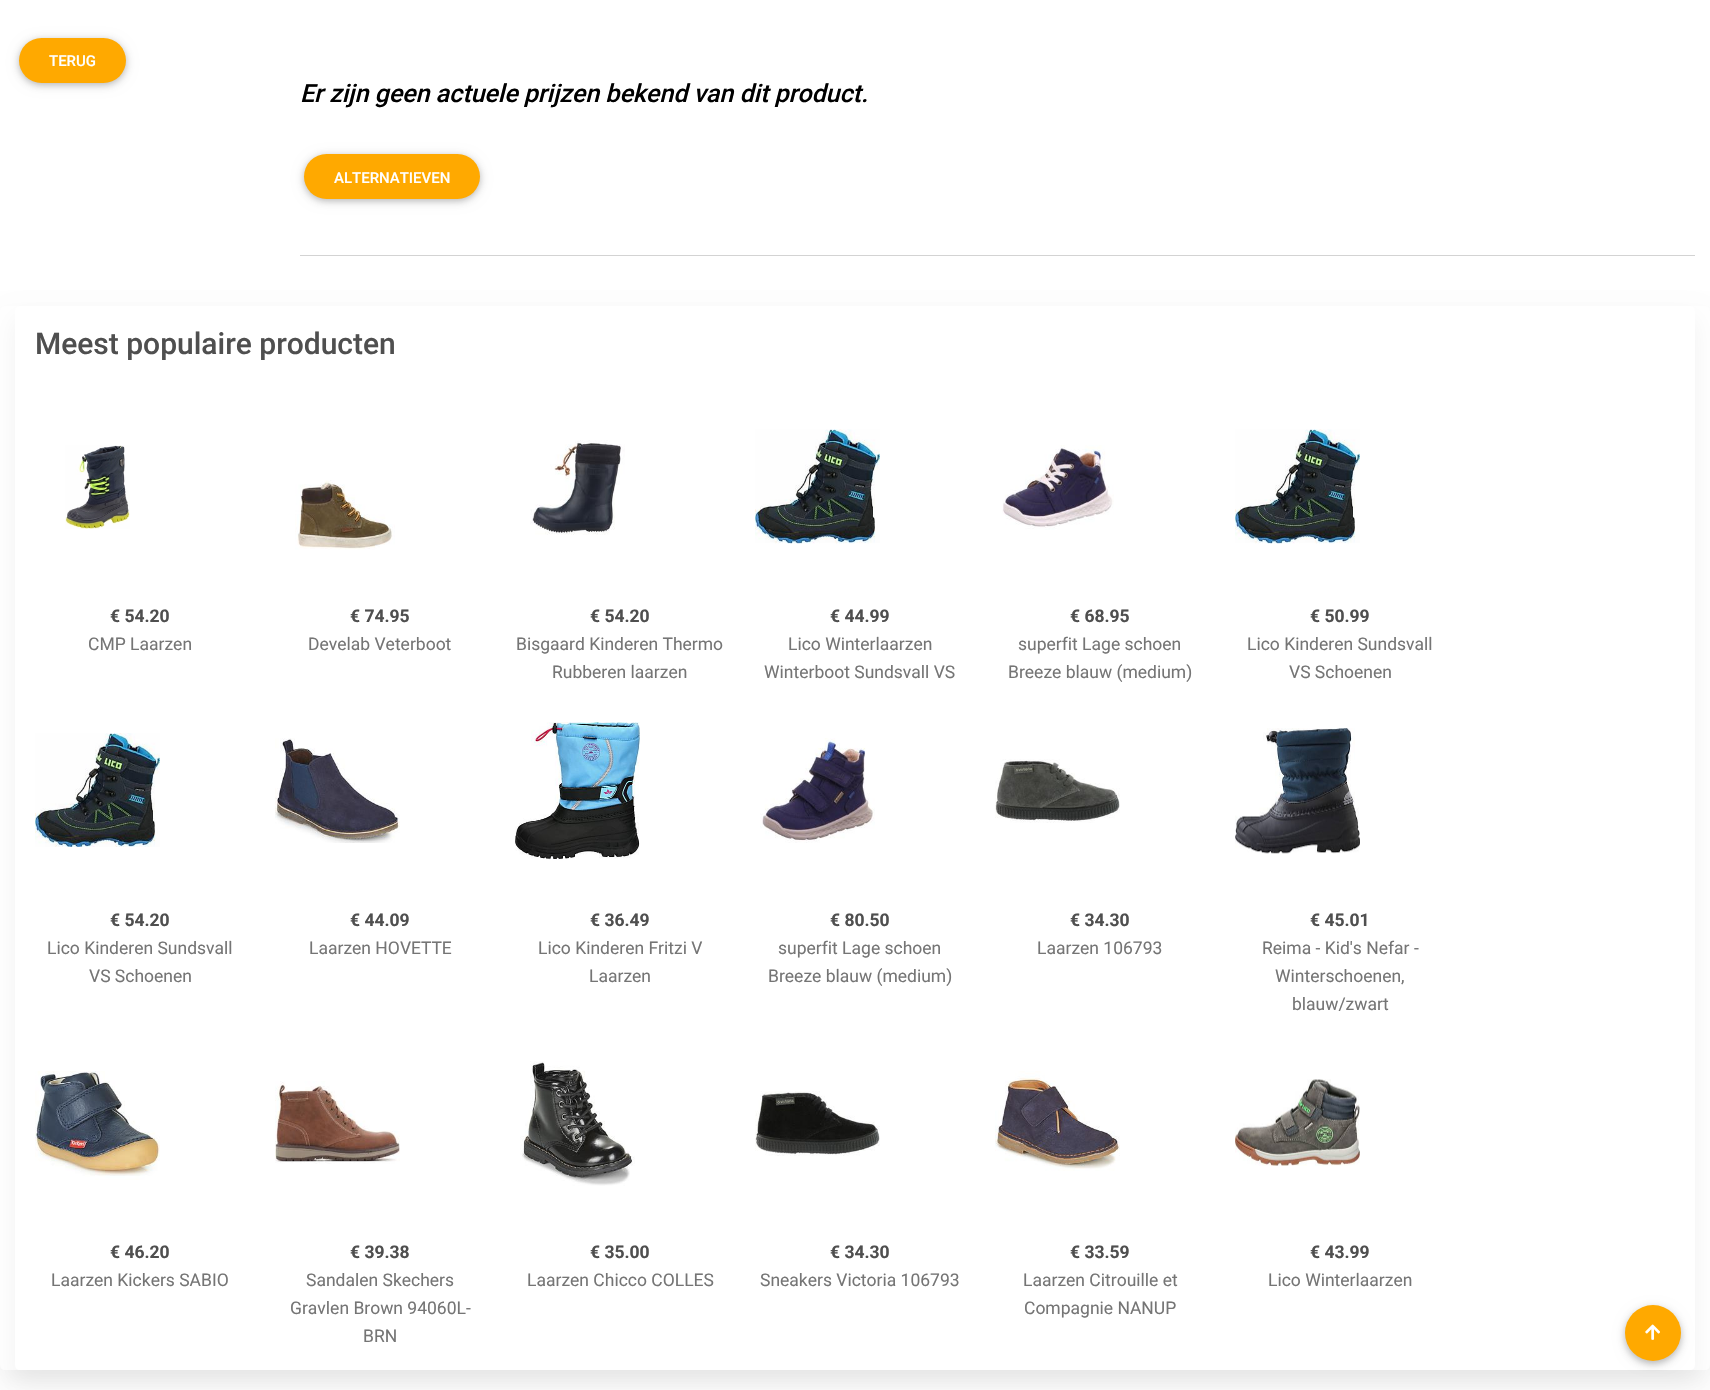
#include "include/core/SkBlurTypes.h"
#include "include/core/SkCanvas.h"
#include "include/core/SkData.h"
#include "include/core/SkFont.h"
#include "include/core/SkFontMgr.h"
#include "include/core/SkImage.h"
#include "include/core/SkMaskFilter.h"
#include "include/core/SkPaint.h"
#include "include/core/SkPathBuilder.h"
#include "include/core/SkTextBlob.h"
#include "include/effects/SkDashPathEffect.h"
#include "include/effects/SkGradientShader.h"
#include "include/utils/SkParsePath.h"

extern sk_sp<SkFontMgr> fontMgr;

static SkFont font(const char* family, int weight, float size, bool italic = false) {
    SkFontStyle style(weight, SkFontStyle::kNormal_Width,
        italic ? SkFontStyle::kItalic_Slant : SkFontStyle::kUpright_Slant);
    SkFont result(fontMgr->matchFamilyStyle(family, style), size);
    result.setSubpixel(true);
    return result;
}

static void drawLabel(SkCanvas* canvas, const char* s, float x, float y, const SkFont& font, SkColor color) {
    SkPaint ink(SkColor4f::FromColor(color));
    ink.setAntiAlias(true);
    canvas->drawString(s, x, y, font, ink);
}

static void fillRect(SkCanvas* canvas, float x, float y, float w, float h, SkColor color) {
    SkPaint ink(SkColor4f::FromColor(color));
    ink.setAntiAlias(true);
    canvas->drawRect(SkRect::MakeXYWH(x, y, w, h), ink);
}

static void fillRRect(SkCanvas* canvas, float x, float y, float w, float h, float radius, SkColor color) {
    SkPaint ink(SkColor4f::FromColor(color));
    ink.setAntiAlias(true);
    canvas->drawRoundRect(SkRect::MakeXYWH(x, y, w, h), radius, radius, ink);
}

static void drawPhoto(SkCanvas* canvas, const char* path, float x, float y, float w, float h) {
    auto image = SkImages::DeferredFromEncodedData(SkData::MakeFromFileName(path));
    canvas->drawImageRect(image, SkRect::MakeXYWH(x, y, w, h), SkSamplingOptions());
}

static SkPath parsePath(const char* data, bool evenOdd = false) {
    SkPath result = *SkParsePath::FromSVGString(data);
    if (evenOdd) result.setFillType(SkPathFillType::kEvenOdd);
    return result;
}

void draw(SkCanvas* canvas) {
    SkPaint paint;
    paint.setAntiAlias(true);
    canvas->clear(0xFFFFFFFF);
    paint.setColor(0x1A000000);
    paint.setMaskFilter(SkMaskFilter::MakeBlur(kNormal_SkBlurStyle, 6));
    canvas->drawRoundRect(SkRect::MakeXYWH(19, 40, 107, 45), 22.5f, 22.5f, paint);
    paint.setMaskFilter(nullptr);
    paint.setColor(0x33000000);
    paint.setMaskFilter(SkMaskFilter::MakeBlur(kNormal_SkBlurStyle, 3));
    canvas->drawRoundRect(SkRect::MakeXYWH(19, 40, 107, 45), 22.5f, 22.5f, paint);
    paint.setMaskFilter(nullptr);
    fillRRect(canvas, 19, 38, 107, 45, 22.5f, 0xFFFFA900);
    SkFont font1 = font("Roboto", 500, 15);
    drawLabel(canvas, "TERUG", 49, 66, font1, 0xFFFFFFFF);
    SkFont font2 = font("Roboto", 500, 25, true);
    drawLabel(canvas, "Er zijn geen actuele prijzen bekend van dit product.", 300, 102, font2, 0xFF000000);
    paint.setColor(0x1A000000);
    paint.setMaskFilter(SkMaskFilter::MakeBlur(kNormal_SkBlurStyle, 6));
    canvas->drawRoundRect(SkRect::MakeXYWH(304, 156, 176, 45), 22.5f, 22.5f, paint);
    paint.setMaskFilter(nullptr);
    paint.setColor(0x33000000);
    paint.setMaskFilter(SkMaskFilter::MakeBlur(kNormal_SkBlurStyle, 3));
    canvas->drawRoundRect(SkRect::MakeXYWH(304, 156, 176, 45), 22.5f, 22.5f, paint);
    paint.setMaskFilter(nullptr);
    fillRRect(canvas, 304, 154, 176, 45, 22.5f, 0xFFFFA900);
    drawLabel(canvas, "ALTERNATIEVEN", 334, 183, font1, 0xFFFFFFFF);
    fillRect(canvas, 300, 255, 1395, 1, 0xFFD3D3D3);
    canvas->save();
    canvas->clipPath(parsePath("M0 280H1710V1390H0ZM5 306H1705C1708 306 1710 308 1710 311V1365C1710 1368 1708 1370 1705 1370H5C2 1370 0 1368 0 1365V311C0 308 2 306 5 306Z", true), true);
    paint.setColor(0x0D000000);
    paint.setMaskFilter(SkMaskFilter::MakeBlur(kNormal_SkBlurStyle, 12.5f));
    canvas->drawRoundRect(SkRect::MakeXYWH(0, 319, 1710, 1064), 5, 5, paint);
    paint.setMaskFilter(nullptr);
    canvas->restore();
    canvas->save();
    canvas->clipPath(parsePath("M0 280H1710V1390H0ZM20 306H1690C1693 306 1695 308 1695 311V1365C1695 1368 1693 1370 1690 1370H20C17 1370 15 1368 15 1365V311C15 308 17 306 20 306Z", true), true);
    paint.setMaskFilter(SkMaskFilter::MakeBlur(kNormal_SkBlurStyle, 12.5f));
    canvas->drawRoundRect(SkRect::MakeXYWH(15, 319, 1680, 1064), 5, 5, paint);
    paint.setMaskFilter(nullptr);
    canvas->restore();
    SkFont font3 = font("Roboto", 500, 30);
    drawLabel(canvas, "Meest populaire producten", 35, 354, font3, 0xFF4F4F4F);
    drawPhoto(canvas, "assets/img1.png", 65, 445, 65, 84);
    SkFont font4 = font("Roboto", 700, 17.5f);
    drawLabel(canvas, "€ 54.20", 110, 622, font4, 0xFF4F4F4F);
    SkFont font5 = font("Roboto", 400, 17.5f);
    drawLabel(canvas, "CMP Laarzen", 88, 650, font5, 0xFF757575);
    drawPhoto(canvas, "assets/img2.png", 295, 480, 100, 70);
    drawLabel(canvas, "€ 74.95", 350, 622, font4, 0xFF4F4F4F);
    drawLabel(canvas, "Develab Veterboot", 308, 650, font5, 0xFF757575);
    drawPhoto(canvas, "assets/img3.png", 530, 440, 95, 95);
    drawLabel(canvas, "€ 54.20", 590, 622, font4, 0xFF4F4F4F);
    drawLabel(canvas, "Bisgaard Kinderen Thermo", 516, 650, font5, 0xFF757575);
    drawLabel(canvas, "Rubberen laarzen", 552, 678, font5, 0xFF757575);
    drawPhoto(canvas, "assets/img4.png", 755, 429, 125, 115);
    drawLabel(canvas, "€ 44.99", 830, 622, font4, 0xFF4F4F4F);
    drawLabel(canvas, "Lico Winterlaarzen", 788, 650, font5, 0xFF757575);
    drawLabel(canvas, "Winterboot Sundsvall VS", 764, 678, font5, 0xFF757575);
    drawPhoto(canvas, "assets/img5.png", 1002, 445, 112, 85);
    drawLabel(canvas, "€ 68.95", 1070, 622, font4, 0xFF4F4F4F);
    drawLabel(canvas, "superfit Lage schoen", 1018, 650, font5, 0xFF757575);
    drawLabel(canvas, "Breeze blauw (medium)", 1008, 678, font5, 0xFF757575);
    drawPhoto(canvas, "assets/img6.png", 1235, 429, 125, 115);
    drawLabel(canvas, "€ 50.99", 1310, 622, font4, 0xFF4F4F4F);
    drawLabel(canvas, "Lico Kinderen Sundsvall", 1247, 650, font5, 0xFF757575);
    drawLabel(canvas, "VS Schoenen", 1289, 678, font5, 0xFF757575);
    drawPhoto(canvas, "assets/img7.png", 35, 733, 125, 114);
    drawLabel(canvas, "€ 54.20", 110, 926, font4, 0xFF4F4F4F);
    drawLabel(canvas, "Lico Kinderen Sundsvall", 47, 954, font5, 0xFF757575);
    drawLabel(canvas, "VS Schoenen", 89, 982, font5, 0xFF757575);
    drawPhoto(canvas, "assets/img8.png", 275, 738, 125, 105);
    drawLabel(canvas, "€ 44.09", 350, 926, font4, 0xFF4F4F4F);
    drawLabel(canvas, "Laarzen HOVETTE", 309, 954, font5, 0xFF757575);
    drawPhoto(canvas, "assets/img9.png", 515, 722, 125, 138);
    drawLabel(canvas, "€ 36.49", 590, 926, font4, 0xFF4F4F4F);
    drawLabel(canvas, "Lico Kinderen Fritzi V", 538, 954, font5, 0xFF757575);
    drawLabel(canvas, "Laarzen", 589, 982, font5, 0xFF757575);
    drawPhoto(canvas, "assets/img10.png", 760, 738, 115, 105);
    drawLabel(canvas, "€ 80.50", 830, 926, font4, 0xFF4F4F4F);
    drawLabel(canvas, "superfit Lage schoen", 778, 954, font5, 0xFF757575);
    drawLabel(canvas, "Breeze blauw (medium)", 768, 982, font5, 0xFF757575);
    drawPhoto(canvas, "assets/img11.png", 995, 759, 125, 64);
    drawLabel(canvas, "€ 34.30", 1070, 926, font4, 0xFF4F4F4F);
    drawLabel(canvas, "Laarzen 106793", 1037, 954, font5, 0xFF757575);
    drawPhoto(canvas, "assets/img12.png", 1235, 728, 125, 126);
    drawLabel(canvas, "€ 45.01", 1310, 926, font4, 0xFF4F4F4F);
    drawLabel(canvas, "Reima - Kid's Nefar -", 1262, 954, font5, 0xFF757575);
    drawLabel(canvas, "Winterschoenen,", 1275, 982, font5, 0xFF757575);
    drawLabel(canvas, "blauw/zwart", 1292, 1010, font5, 0xFF757575);
    drawPhoto(canvas, "assets/img13.png", 35, 1071, 125, 109);
    drawLabel(canvas, "€ 46.20", 110, 1258, font4, 0xFF4F4F4F);
    drawLabel(canvas, "Laarzen Kickers SABIO", 51, 1286, font5, 0xFF757575);
    drawPhoto(canvas, "assets/img14.png", 275, 1081, 125, 83);
    drawLabel(canvas, "€ 39.38", 350, 1258, font4, 0xFF4F4F4F);
    drawLabel(canvas, "Sandalen Skechers", 306, 1286, font5, 0xFF757575);
    drawLabel(canvas, "Gravlen Brown 94060L-", 290, 1314, font5, 0xFF757575);
    drawLabel(canvas, "BRN", 363, 1342, font5, 0xFF757575);
    drawPhoto(canvas, "assets/img15.png", 520, 1061, 115, 125);
    drawLabel(canvas, "€ 35.00", 590, 1258, font4, 0xFF4F4F4F);
    drawLabel(canvas, "Laarzen Chicco COLLES", 527, 1286, font5, 0xFF757575);
    drawPhoto(canvas, "assets/img16.png", 755, 1091, 125, 65);
    drawLabel(canvas, "€ 34.30", 830, 1258, font4, 0xFF4F4F4F);
    drawLabel(canvas, "Sneakers Victoria 106793", 760, 1286, font5, 0xFF757575);
    drawPhoto(canvas, "assets/img17.png", 995, 1071, 125, 100);
    drawLabel(canvas, "€ 33.59", 1070, 1258, font4, 0xFF4F4F4F);
    drawLabel(canvas, "Laarzen Citrouille et", 1023, 1286, font5, 0xFF757575);
    drawLabel(canvas, "Compagnie NANUP", 1024, 1314, font5, 0xFF757575);
    drawPhoto(canvas, "assets/img18.png", 1235, 1079, 125, 87);
    drawLabel(canvas, "€ 43.99", 1310, 1258, font4, 0xFF4F4F4F);
    drawLabel(canvas, "Lico Winterlaarzen", 1268, 1286, font5, 0xFF757575);
    paint.setColor(0x1A000000);
    paint.setMaskFilter(SkMaskFilter::MakeBlur(kNormal_SkBlurStyle, 6));
    canvas->drawRoundRect(SkRect::MakeXYWH(1625, 1308, 56, 56), 28, 28, paint);
    paint.setMaskFilter(nullptr);
    paint.setColor(0x33000000);
    paint.setMaskFilter(SkMaskFilter::MakeBlur(kNormal_SkBlurStyle, 3));
    canvas->drawRoundRect(SkRect::MakeXYWH(1625, 1308, 56, 56), 28, 28, paint);
    paint.setMaskFilter(nullptr);
    paint.setColor(0xFFFFA900);
    canvas->drawCircle(1653, 1333, 28, paint);
    drawPhoto(canvas, "assets/img19.png", 1645, 1324, 15, 16);
}
